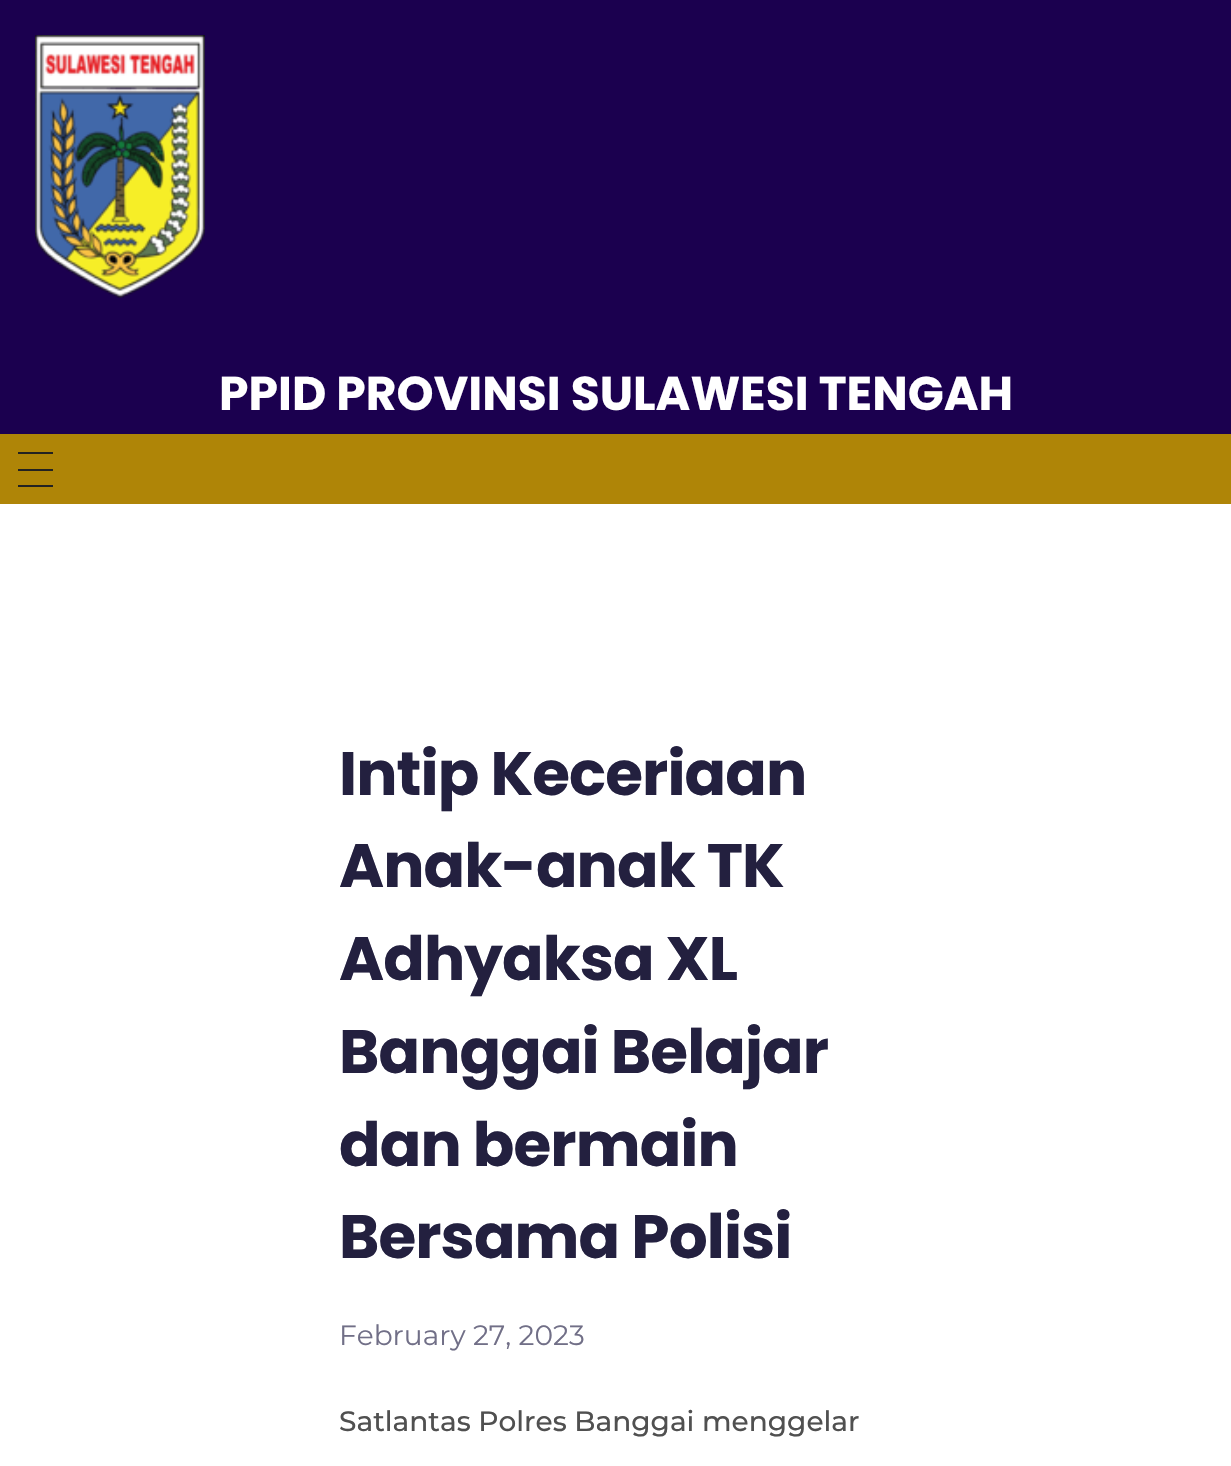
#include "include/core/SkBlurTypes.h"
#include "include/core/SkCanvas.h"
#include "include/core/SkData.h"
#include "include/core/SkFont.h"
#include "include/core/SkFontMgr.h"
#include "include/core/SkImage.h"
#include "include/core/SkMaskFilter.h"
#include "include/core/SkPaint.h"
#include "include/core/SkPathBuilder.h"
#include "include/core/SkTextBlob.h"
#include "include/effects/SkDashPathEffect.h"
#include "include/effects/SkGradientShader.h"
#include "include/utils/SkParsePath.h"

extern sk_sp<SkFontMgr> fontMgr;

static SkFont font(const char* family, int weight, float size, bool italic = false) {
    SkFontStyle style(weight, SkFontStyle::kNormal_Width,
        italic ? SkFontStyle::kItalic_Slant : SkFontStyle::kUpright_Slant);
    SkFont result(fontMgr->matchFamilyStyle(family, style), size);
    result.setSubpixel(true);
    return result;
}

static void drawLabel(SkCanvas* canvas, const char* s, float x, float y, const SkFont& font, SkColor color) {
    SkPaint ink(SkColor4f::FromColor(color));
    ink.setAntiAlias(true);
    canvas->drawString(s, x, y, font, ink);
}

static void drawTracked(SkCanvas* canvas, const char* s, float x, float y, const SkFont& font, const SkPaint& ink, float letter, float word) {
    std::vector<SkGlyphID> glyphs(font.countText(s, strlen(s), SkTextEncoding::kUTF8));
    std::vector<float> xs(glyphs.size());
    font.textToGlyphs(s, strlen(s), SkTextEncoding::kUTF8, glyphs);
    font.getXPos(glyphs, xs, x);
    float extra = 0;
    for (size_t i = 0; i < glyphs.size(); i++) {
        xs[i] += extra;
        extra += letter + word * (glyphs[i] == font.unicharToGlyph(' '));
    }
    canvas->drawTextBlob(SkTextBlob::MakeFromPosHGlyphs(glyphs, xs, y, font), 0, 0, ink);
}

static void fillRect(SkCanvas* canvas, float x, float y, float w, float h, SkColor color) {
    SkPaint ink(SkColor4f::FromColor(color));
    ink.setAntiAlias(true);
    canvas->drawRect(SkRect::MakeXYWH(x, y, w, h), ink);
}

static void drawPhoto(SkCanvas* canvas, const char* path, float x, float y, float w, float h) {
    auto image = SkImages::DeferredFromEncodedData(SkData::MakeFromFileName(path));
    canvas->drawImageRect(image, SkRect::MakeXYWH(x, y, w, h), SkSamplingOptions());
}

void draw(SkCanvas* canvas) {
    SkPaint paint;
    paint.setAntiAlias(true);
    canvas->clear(0xFFFFFFFF);
    fillRect(canvas, 0, 0, 1231, 434, 0xFF1B004F);
    drawPhoto(canvas, "assets/img1.png", 35, 35, 170, 263);
    SkFont font1 = font("Poppins", 700, 47.25f);
    drawLabel(canvas, "PPID PROVINSI SULAWESI TENGAH", 219, 410, font1, 0xFFFFFFFF);
    fillRect(canvas, 0, 434, 1231, 70, 0xFFAF8507);
    fillRect(canvas, 18, 452, 35, 2, 0xFF222222);
    fillRect(canvas, 18, 469, 35, 2, 0xFF222222);
    fillRect(canvas, 18, 485, 35, 2, 0xFF222222);
    SkFont font2 = font("Poppins", 700, 61.25f);
    paint.setColor(0xFF23203F);
    drawTracked(canvas, "Intip Keceriaan", 339, 795, font2, paint, -0.9f, 0);
    drawTracked(canvas, "Anak-anak TK", 339, 887, font2, paint, -0.9f, 0);
    drawTracked(canvas, "Adhyaksa XL", 339, 980, font2, paint, -0.9f, 0);
    drawTracked(canvas, "Banggai Belajar", 339, 1073, font2, paint, -0.9f, 0);
    drawTracked(canvas, "dan bermain", 339, 1166, font2, paint, -0.9f, 0);
    drawTracked(canvas, "Bersama Polisi", 339, 1258, font2, paint, -0.9f, 0);
    SkFont font3 = font("Montserrat", 400, 28);
    drawLabel(canvas, "February 27, 2023", 339, 1345, font3, 0xFF716F87);
    SkFont font4 = font("Montserrat", 500, 28);
    drawLabel(canvas, "Satlantas Polres Banggai menggelar", 339, 1431, font4, 0xFF505050);
}
